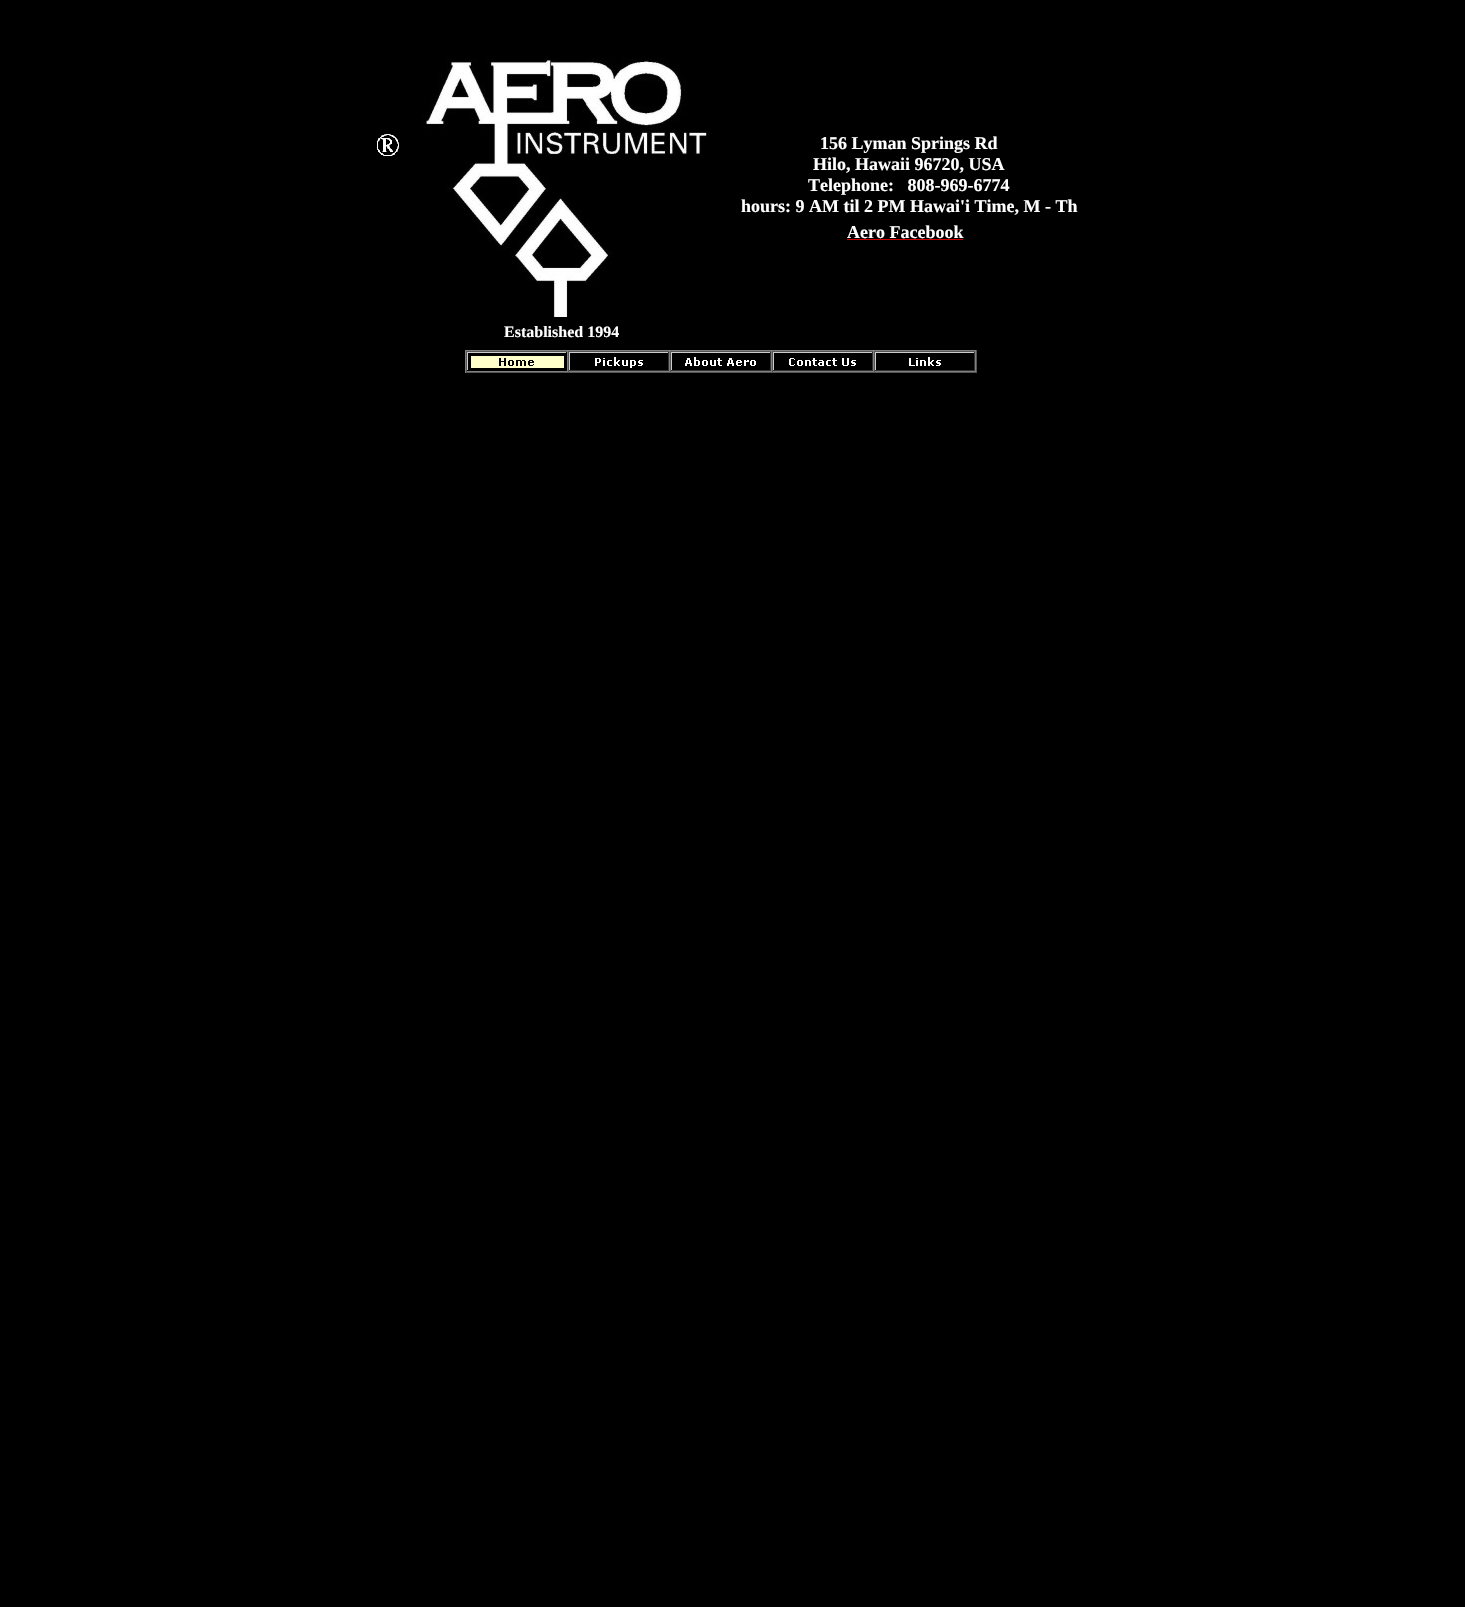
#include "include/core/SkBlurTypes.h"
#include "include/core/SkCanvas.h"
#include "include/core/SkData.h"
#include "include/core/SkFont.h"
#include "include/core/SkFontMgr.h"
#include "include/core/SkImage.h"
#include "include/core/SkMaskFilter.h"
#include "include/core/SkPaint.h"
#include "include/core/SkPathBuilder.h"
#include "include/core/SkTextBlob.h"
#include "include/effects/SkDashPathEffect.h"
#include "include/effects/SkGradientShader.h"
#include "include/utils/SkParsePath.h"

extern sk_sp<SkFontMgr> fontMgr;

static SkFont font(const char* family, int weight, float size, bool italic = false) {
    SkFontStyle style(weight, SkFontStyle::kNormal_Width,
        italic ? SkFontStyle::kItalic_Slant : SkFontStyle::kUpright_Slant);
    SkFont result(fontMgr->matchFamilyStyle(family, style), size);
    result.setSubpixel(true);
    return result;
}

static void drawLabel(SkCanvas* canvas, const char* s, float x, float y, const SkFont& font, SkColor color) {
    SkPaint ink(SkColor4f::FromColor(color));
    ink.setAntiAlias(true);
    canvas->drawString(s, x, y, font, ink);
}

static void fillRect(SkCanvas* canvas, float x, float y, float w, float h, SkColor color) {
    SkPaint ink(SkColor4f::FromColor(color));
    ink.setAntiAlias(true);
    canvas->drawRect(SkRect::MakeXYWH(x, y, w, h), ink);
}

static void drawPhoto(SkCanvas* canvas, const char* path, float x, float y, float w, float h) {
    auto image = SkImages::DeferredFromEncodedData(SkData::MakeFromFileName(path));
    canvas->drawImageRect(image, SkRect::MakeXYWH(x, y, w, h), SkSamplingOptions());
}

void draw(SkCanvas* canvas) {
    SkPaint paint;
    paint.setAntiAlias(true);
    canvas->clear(0xFF000000);
    SkFont font1 = font("Liberation Serif", 700, 18);
    drawLabel(canvas, "156 Lyman Springs Rd", 820, 149, font1, 0xFFFFFFFF);
    drawLabel(canvas, "Hilo, Hawaii 96720, USA", 813, 170, font1, 0xFFFFFFFF);
    drawLabel(canvas, "Telephone:   808-969-6774", 808, 191, font1, 0xFFFFFFFF);
    drawLabel(canvas, "hours: 9 AM til 2 PM Hawai'i Time, M - Th", 741, 212, font1, 0xFFFFFFFF);
    drawLabel(canvas, "Aero Facebook", 847, 238, font1, 0xFFFFFFFF);
    fillRect(canvas, 847, 239, 116, 1, 0xFFCC0000);
    drawPhoto(canvas, "assets/img1.png", 377, 134, 22, 22);
    drawPhoto(canvas, "assets/img2.png", 422, 58, 287, 259);
    SkFont font2 = font("Liberation Serif", 700, 16);
    drawLabel(canvas, "Established 1994", 504, 337, font2, 0xFFFFFFFF);
    fillRect(canvas, 465, 350, 512, 1, 0xFF808080);
    fillRect(canvas, 976, 350, 1, 23, 0xFF555555);
    fillRect(canvas, 465, 372, 512, 1, 0xFF555555);
    fillRect(canvas, 465, 350, 1, 23, 0xFF808080);
    fillRect(canvas, 466, 351, 510, 1, 0xFF555555);
    fillRect(canvas, 567, 351, 1, 21, 0xFF808080);
    fillRect(canvas, 466, 371, 102, 1, 0xFF808080);
    fillRect(canvas, 466, 351, 1, 21, 0xFF555555);
    drawPhoto(canvas, "assets/img3.png", 467, 352, 99, 18);
    fillRect(canvas, 669, 351, 1, 21, 0xFF808080);
    fillRect(canvas, 568, 371, 102, 1, 0xFF808080);
    fillRect(canvas, 568, 351, 1, 21, 0xFF555555);
    drawPhoto(canvas, "assets/img4.png", 569, 352, 100, 19);
    fillRect(canvas, 771, 351, 1, 21, 0xFF808080);
    fillRect(canvas, 670, 371, 102, 1, 0xFF808080);
    fillRect(canvas, 670, 351, 1, 21, 0xFF555555);
    drawPhoto(canvas, "assets/img5.png", 671, 352, 100, 19);
    fillRect(canvas, 873, 351, 1, 21, 0xFF808080);
    fillRect(canvas, 772, 371, 102, 1, 0xFF808080);
    fillRect(canvas, 772, 351, 1, 21, 0xFF555555);
    drawPhoto(canvas, "assets/img6.png", 773, 352, 100, 19);
    fillRect(canvas, 975, 351, 1, 21, 0xFF808080);
    fillRect(canvas, 874, 371, 102, 1, 0xFF808080);
    fillRect(canvas, 874, 351, 1, 21, 0xFF555555);
    drawPhoto(canvas, "assets/img7.png", 875, 352, 100, 19);
}
